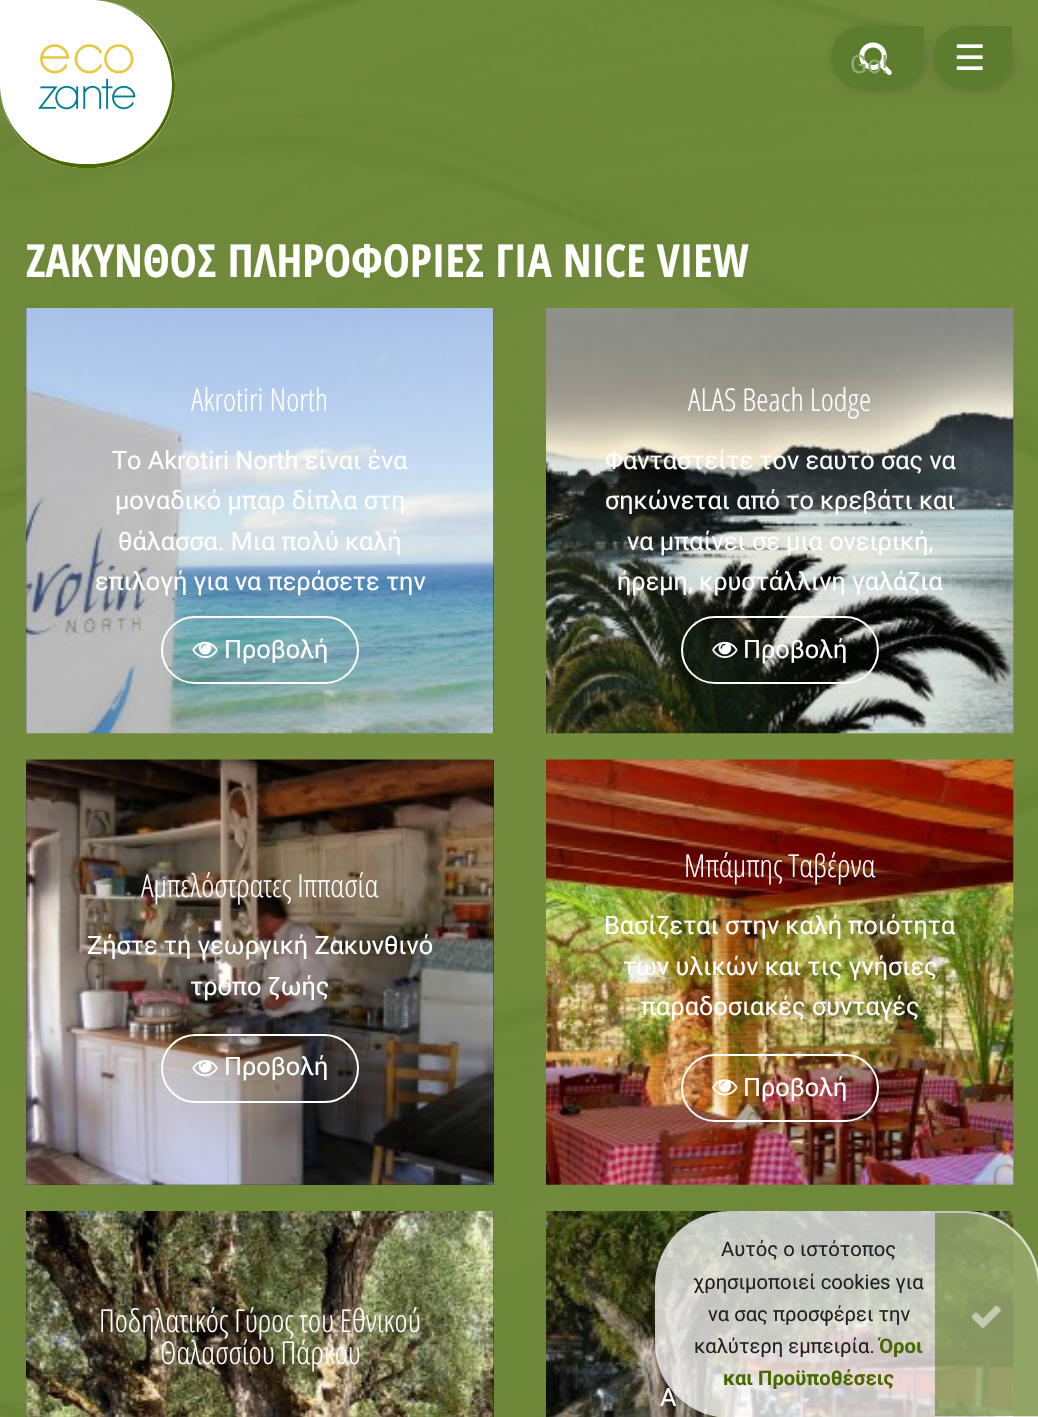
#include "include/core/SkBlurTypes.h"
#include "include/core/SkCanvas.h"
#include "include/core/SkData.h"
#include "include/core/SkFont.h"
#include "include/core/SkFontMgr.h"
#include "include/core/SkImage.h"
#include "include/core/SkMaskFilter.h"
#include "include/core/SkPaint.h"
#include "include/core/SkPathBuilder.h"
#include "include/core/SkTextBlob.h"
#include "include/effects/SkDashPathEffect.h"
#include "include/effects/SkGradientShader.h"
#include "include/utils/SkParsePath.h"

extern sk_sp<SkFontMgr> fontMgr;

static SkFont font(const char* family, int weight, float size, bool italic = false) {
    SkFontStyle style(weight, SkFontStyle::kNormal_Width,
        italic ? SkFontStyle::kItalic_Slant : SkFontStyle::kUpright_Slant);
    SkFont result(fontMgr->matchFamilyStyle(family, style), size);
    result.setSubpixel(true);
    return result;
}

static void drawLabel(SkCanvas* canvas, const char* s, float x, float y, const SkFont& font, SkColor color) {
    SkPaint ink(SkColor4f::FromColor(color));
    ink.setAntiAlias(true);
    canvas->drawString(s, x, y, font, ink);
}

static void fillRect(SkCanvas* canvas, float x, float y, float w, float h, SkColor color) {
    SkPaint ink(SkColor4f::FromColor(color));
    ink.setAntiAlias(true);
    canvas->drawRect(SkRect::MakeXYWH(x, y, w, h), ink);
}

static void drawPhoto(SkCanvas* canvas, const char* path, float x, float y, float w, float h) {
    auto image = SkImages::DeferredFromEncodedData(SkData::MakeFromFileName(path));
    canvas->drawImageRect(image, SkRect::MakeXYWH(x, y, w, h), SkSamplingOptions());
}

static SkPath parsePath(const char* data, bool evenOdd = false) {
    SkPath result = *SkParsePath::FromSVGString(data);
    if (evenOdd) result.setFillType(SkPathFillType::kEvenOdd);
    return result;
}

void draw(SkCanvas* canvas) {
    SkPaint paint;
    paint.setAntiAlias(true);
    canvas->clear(0xFFFFFFFF);
    drawPhoto(canvas, "assets/img1.png", 0, 0, 1038, 1417);
    paint.setColor(0xFFFFFFFF);
    canvas->drawPath(parsePath("M0 0H91C137.5 0 175 37.5 175 84C175 130.5 137.5 168 91 168H84C37.5 168 0 130.5 0 84Z"), paint);
    paint.setColor(0xFF476900);
    canvas->drawPath(parsePath("M0 0H91C137 0 175 38 175 84C175 130 137 168 91 168H84C38 168 0 130 0 84ZM0 0H91C135 0 172 38 172 84C172 128 135 164 91 164H84C38 164 0 128 0 84Z", true), paint);
    drawPhoto(canvas, "assets/img2.png", 38, 44, 98, 66);
    paint.setColor(0xFF333333);
    paint.setMaskFilter(SkMaskFilter::MakeBlur(kNormal_SkBlurStyle, 9));
    canvas->drawRoundRect(SkRect::MakeXYWH(943, 37, 62, 45), 22.5f, 22.5f, paint);
    paint.setMaskFilter(nullptr);
    paint.setColor(0xFF5D7D2E);
    canvas->drawPath(parsePath("M964.5 26H1012V57.5C1012 75 998 89 980.5 89H964.5C947 89 933 75 933 57.5C933 40 947 26 964.5 26Z"), paint);
    paint.setColor(0xFF333333);
    paint.setMaskFilter(SkMaskFilter::MakeBlur(kNormal_SkBlurStyle, 9));
    canvas->drawRoundRect(SkRect::MakeXYWH(842, 37, 75, 45), 22.5f, 22.5f, paint);
    paint.setMaskFilter(nullptr);
    paint.setColor(0xFF5D7D2E);
    canvas->drawPath(parsePath("M862.5 26H924V57.5C924 75 910 89 892.5 89H862.5C845 89 831 75 831 57.5C831 40 845 26 862.5 26Z"), paint);
    drawPhoto(canvas, "assets/img3.png", 859, 42, 33, 33);
    SkFont font1 = font("Roboto", 400, 25.25f);
    drawLabel(canvas, "Go!", 850, 73, font1, 0xFF96AA77);
    SkFont font2 = font("DejaVu Sans", 400, 35);
    drawLabel(canvas, "☰", 954, 70, font2, 0xFFFFFFFF);
    SkFont font3 = font("Open Sans Condensed", 700, 45.5f);
    drawLabel(canvas, "ΖΑΚΥΝΘΟΣ ΠΛΗΡΟΦΟΡΙΕΣ ΓΙΑ NICE VIEW", 26, 277, font3, 0xFFFFFFFF);
    fillRect(canvas, 26, 308, 468, 425, 0xFF222222);
    drawPhoto(canvas, "assets/img4.png", 26, 308, 468, 426);
    SkFont font4 = font("Open Sans Condensed", 300, 31.5f);
    drawLabel(canvas, "Akrotiri North", 191, 411, font4, 0xFFFFFFFF);
    drawLabel(canvas, "Το Akrotiri Νorth είναι ένα", 112, 469, font1, 0xFFFFFFFF);
    drawLabel(canvas, "μοναδικό μπαρ δίπλα στη", 115, 509, font1, 0xFFFFFFFF);
    drawLabel(canvas, "θάλασσα. Μια πολύ καλή", 118, 550, font1, 0xFFFFFFFF);
    drawLabel(canvas, "επιλογή για να περάσετε την", 95, 590, font1, 0xFFFFFFFF);
    paint.setStroke(true);
    paint.setStrokeWidth(2);
    paint.setColor(0xFFFFFFFF);
    canvas->drawRoundRect(SkRect::MakeXYWH(162, 617, 196, 66), 33, 33, paint);
    drawPhoto(canvas, "assets/img5.png", 192, 641, 26, 17);
    drawLabel(canvas, "Προβολή", 224, 658, font1, 0xFFFFFFFF);
    drawPhoto(canvas, "assets/img6.png", 546, 308, 468, 426);
    drawLabel(canvas, "ALAS Beach Lodge", 688, 411, font4, 0xFFFFFFFF);
    drawLabel(canvas, "Φανταστείτε τον εαυτό σας να", 605, 469, font1, 0xFFFFFFFF);
    drawLabel(canvas, "σηκώνεται από το κρεβάτι και", 605, 509, font1, 0xFFFFFFFF);
    drawLabel(canvas, "να μπαίνει σε μια ονειρική,", 627, 550, font1, 0xFFFFFFFF);
    drawLabel(canvas, "ήρεμη, κρυστάλλινη γαλάζια", 617, 590, font1, 0xFFFFFFFF);
    canvas->drawRoundRect(SkRect::MakeXYWH(682, 617, 196, 66), 33, 33, paint);
    drawPhoto(canvas, "assets/img7.png", 712, 641, 26, 17);
    drawLabel(canvas, "Προβολή", 743, 658, font1, 0xFFFFFFFF);
    fillRect(canvas, 26, 760, 468, 425, 0xFF222222);
    drawPhoto(canvas, "assets/img8.png", 26, 759, 468, 426);
    drawLabel(canvas, "Αμπελόστρατες Ιππασία", 141, 897, font4, 0xFFFFFFFF);
    drawLabel(canvas, "Ζήστε τη γεωργική Ζακυνθινό", 87, 954, font1, 0xFFFFFFFF);
    drawLabel(canvas, "τρόπο ζωής", 190, 995, font1, 0xFFFFFFFF);
    canvas->drawRoundRect(SkRect::MakeXYWH(162, 1035, 196, 67), 33.5f, 33.5f, paint);
    drawPhoto(canvas, "assets/img9.png", 192, 1060, 26, 17);
    drawLabel(canvas, "Προβολή", 224, 1075, font1, 0xFFFFFFFF);
    drawPhoto(canvas, "assets/img10.png", 546, 759, 468, 426);
    drawLabel(canvas, "Μπάμπης Ταβέρνα", 684, 877, font4, 0xFFFFFFFF);
    drawLabel(canvas, "Βασίζεται στην καλή ποιότητα", 604, 934, font1, 0xFFFFFFFF);
    drawLabel(canvas, "των υλικών και τις γνήσιες", 623, 975, font1, 0xFFFFFFFF);
    drawLabel(canvas, "παραδοσιακές συνταγές", 641, 1015, font1, 0xFFFFFFFF);
    canvas->drawRoundRect(SkRect::MakeXYWH(682, 1055, 196, 66), 33, 33, paint);
    drawPhoto(canvas, "assets/img11.png", 712, 1079, 26, 17);
    drawLabel(canvas, "Προβολή", 743, 1096, font1, 0xFFFFFFFF);
    fillRect(canvas, 26, 1211, 468, 206, 0xFF222222);
    drawPhoto(canvas, "assets/img12.png", 26, 1211, 468, 206);
    drawLabel(canvas, "Ποδηλατικός Γύρος του Εθνικού", 99, 1332, font4, 0xFFFFFFFF);
    drawLabel(canvas, "Θαλασσίου Πάρκου", 160, 1364, font4, 0xFFFFFFFF);
    drawPhoto(canvas, "assets/img13.png", 546, 1211, 468, 206);
    drawLabel(canvas, "Α", 660, 1406, font1, 0xFFFFFFFF);
    paint.setStroke(false);
    paint.setColor(0xBFFFFFFF);
    canvas->drawPath(parsePath("M730 1211H965C1006.5 1211 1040 1244.5 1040 1286V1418H730C688.5 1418 655 1384.5 655 1343V1286C655 1244.5 688.5 1211 730 1211Z"), paint);
    SkFont font5 = font("Roboto", 400, 20.2f);
    drawLabel(canvas, "Αυτός ο ιστότοπος", 721, 1256, font5, 0xFF222222);
    drawLabel(canvas, "χρησιμοποιεί cookies για", 693, 1289, font5, 0xFF222222);
    drawLabel(canvas, "να σας προσφέρει την", 708, 1321, font5, 0xFF222222);
    drawLabel(canvas, "καλύτερη εμπειρία.", 694, 1353, font5, 0xFF222222);
    SkFont font6 = font("Roboto", 700, 20.2f);
    drawLabel(canvas, "Όροι", 879, 1353, font6, 0xFF476900);
    drawLabel(canvas, "και Προϋποθέσεις", 723, 1385, font6, 0xFF476900);
    paint.setColor(0x80476900);
    canvas->drawPath(parsePath("M935 1213H964C1005 1213 1038 1246 1038 1287V1416H935Z"), paint);
    drawPhoto(canvas, "assets/img14.png", 971, 1305, 30, 23);
}
